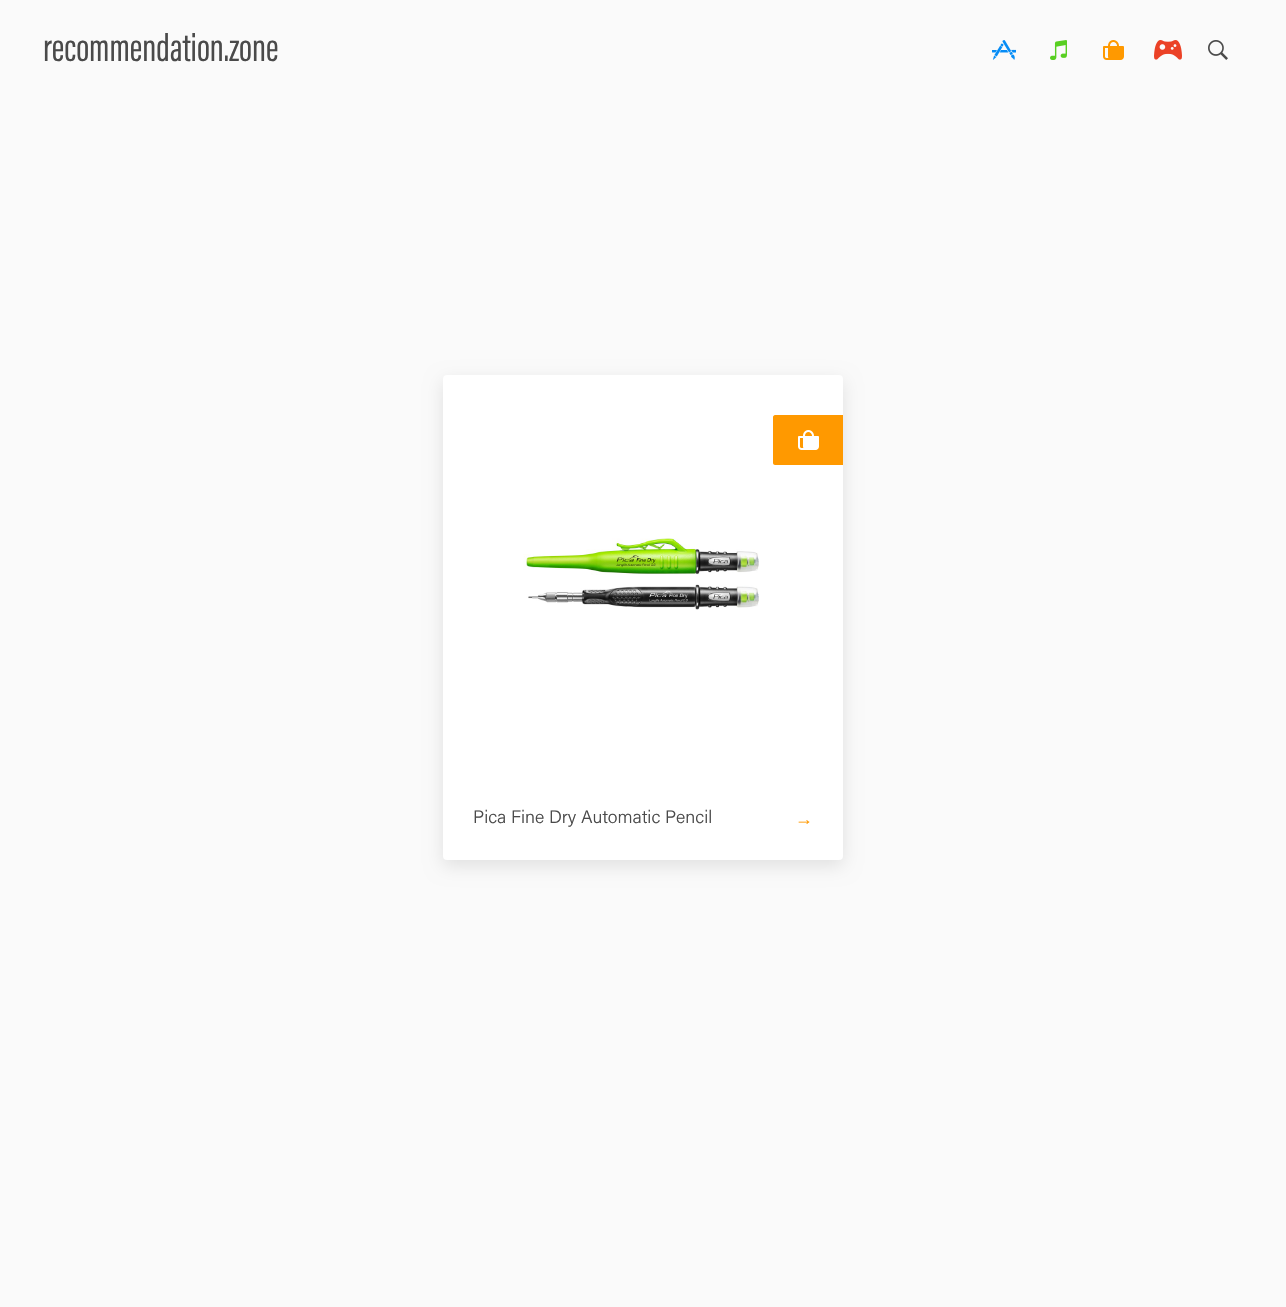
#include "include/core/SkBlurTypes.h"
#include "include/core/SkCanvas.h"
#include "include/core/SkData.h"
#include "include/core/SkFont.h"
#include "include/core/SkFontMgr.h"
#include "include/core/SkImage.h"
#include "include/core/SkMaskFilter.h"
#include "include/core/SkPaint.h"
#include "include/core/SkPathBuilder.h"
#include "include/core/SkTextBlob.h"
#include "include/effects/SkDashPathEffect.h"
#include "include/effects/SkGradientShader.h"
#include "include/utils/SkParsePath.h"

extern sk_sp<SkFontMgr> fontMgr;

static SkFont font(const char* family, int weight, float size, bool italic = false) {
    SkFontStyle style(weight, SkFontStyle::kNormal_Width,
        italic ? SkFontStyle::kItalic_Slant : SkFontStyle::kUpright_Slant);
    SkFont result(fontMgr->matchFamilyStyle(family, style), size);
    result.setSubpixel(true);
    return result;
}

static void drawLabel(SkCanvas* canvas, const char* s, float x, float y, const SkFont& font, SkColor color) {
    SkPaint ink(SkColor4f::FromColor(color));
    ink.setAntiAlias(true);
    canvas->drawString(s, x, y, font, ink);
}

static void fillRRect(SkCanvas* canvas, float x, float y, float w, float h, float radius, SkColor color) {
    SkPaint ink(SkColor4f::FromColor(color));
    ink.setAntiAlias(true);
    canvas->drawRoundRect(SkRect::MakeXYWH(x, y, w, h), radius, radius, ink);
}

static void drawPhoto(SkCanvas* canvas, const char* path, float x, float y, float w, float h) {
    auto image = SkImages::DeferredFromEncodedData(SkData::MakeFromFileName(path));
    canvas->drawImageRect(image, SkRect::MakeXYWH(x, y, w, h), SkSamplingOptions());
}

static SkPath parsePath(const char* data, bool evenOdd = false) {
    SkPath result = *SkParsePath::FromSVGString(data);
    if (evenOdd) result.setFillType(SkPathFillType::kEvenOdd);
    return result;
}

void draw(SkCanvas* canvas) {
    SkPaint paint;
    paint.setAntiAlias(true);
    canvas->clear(0xFFFAFAFA);
    SkFont font1 = font("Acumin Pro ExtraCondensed", 400, 40);
    drawLabel(canvas, "recommendation.zone", 43, 61, font1, 0xFF4A4A4A);
    drawPhoto(canvas, "assets/img1.png", 992, 40, 24, 20);
    drawPhoto(canvas, "assets/img2.png", 1050, 40, 17, 20);
    drawPhoto(canvas, "assets/img3.png", 1103, 40, 21, 20);
    drawPhoto(canvas, "assets/img4.png", 1154, 40, 28, 20);
    drawPhoto(canvas, "assets/img5.png", 1208, 40, 20, 20);
    paint.setColor(0x1A000000);
    paint.setMaskFilter(SkMaskFilter::MakeBlur(kNormal_SkBlurStyle, 9));
    canvas->drawRoundRect(SkRect::MakeXYWH(443, 381, 400, 485), 4, 4, paint);
    paint.setMaskFilter(nullptr);
    fillRRect(canvas, 443, 375, 400, 485, 4, 0xFFFFFFFF);
    paint.setColor(0xFFFF9900);
    canvas->drawPath(parsePath("M775 415H843V465H775C774 465 773 464 773 463V417C773 416 774 415 775 415Z"), paint);
    drawPhoto(canvas, "assets/img6.png", 798, 430, 21, 20);
    drawPhoto(canvas, "assets/img7.png", 523, 538, 236, 72);
    SkFont font2 = font("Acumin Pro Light", 300, 18);
    drawLabel(canvas, "Pica Fine Dry Automatic Pencil", 473, 823, font2, 0xFF4A4A4A);
    SkFont font3 = font("Liberation Sans", 400, 18);
    drawLabel(canvas, "→", 795, 825, font3, 0xFFFF9900);
}
